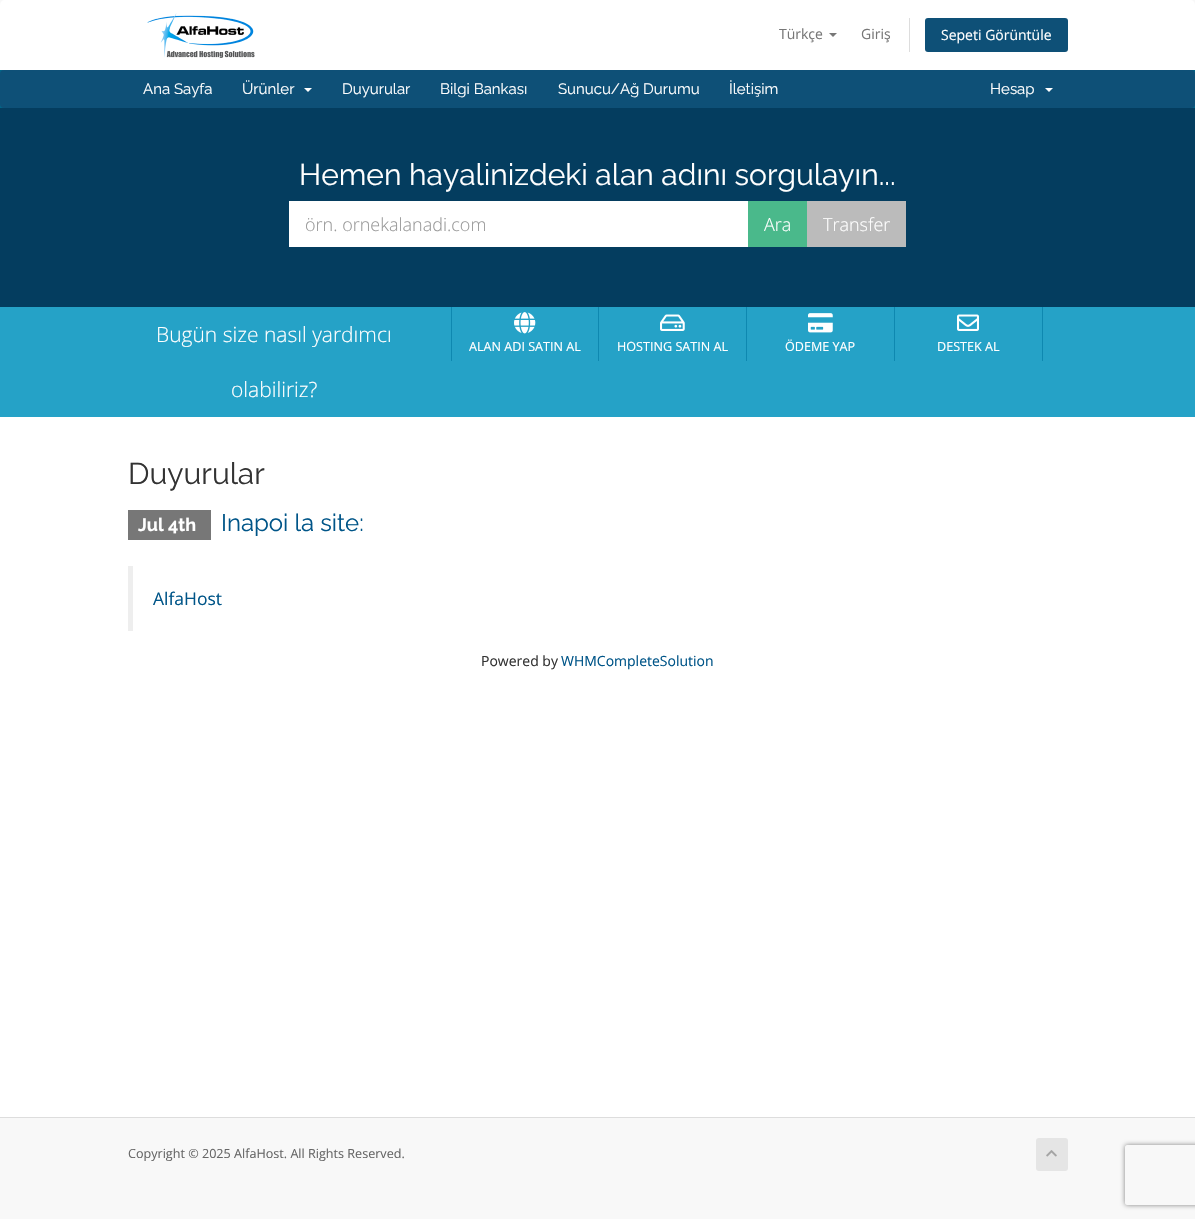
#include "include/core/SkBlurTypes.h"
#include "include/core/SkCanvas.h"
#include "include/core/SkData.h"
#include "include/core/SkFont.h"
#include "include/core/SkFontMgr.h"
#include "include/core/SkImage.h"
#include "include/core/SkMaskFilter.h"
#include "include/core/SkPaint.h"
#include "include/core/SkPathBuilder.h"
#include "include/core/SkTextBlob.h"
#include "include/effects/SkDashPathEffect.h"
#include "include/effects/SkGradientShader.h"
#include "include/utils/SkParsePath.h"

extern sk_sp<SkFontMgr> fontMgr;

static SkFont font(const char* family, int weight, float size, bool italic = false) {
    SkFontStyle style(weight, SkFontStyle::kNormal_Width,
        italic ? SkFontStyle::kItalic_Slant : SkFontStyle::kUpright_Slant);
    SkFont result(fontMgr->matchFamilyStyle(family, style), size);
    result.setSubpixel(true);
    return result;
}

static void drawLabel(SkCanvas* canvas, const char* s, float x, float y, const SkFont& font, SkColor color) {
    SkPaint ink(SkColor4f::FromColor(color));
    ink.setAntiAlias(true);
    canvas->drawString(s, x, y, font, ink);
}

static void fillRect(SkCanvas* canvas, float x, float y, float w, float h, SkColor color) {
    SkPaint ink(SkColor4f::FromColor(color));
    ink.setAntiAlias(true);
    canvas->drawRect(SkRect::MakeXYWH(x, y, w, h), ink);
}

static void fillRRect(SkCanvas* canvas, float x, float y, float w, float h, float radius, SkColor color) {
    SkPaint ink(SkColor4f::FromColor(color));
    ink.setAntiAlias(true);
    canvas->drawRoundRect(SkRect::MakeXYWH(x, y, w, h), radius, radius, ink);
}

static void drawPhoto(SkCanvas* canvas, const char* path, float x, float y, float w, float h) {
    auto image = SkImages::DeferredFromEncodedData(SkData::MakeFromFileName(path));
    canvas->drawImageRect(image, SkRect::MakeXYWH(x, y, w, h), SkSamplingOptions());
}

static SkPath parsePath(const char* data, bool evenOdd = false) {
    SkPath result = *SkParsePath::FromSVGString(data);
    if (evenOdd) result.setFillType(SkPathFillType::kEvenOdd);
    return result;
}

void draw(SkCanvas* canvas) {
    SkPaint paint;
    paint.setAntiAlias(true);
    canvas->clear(0xFFF8F8F8);
    paint.setColor(0xFFFFFFFF);
    canvas->drawPath(parsePath("M5 0H1190C1193 0 1195 2 1195 5V70H0V5C0 2 2 0 5 0Z"), paint);
    drawPhoto(canvas, "assets/img1.png", 147, 13, 108, 45);
    SkFont font1 = font("Open Sans", 400, 14);
    drawLabel(canvas, "Türkçe", 779, 39, font1, 0xFF777777);
    paint.setColor(0xFF777777);
    canvas->drawPath(parsePath("M829 33H837L833 37Z"), paint);
    drawLabel(canvas, "Giriş", 861, 39, font1, 0xFF777777);
    fillRect(canvas, 909, 18, 1, 34, 0xFFDDDDDD);
    fillRRect(canvas, 925, 18, 143, 34, 3, 0xFF0E5077);
    drawLabel(canvas, "Sepeti Görüntüle", 941, 40, font1, 0xFFFFFFFF);
    fillRect(canvas, 0, 70, 1195, 38, 0xFF006687);
    fillRRect(canvas, 0, 70, 1195, 38, 4, 0xFF0E5077);
    SkFont font2 = font("Raleway", 400, 15);
    drawLabel(canvas, "Ana Sayfa", 143, 94, font2, 0xFFFFFFFF);
    drawLabel(canvas, "Ürünler", 242, 94, font2, 0xFFFFFFFF);
    paint.setColor(0xFFFFFFFF);
    canvas->drawPath(parsePath("M304 88H312L308 92Z"), paint);
    drawLabel(canvas, "Duyurular", 342, 94, font2, 0xFFFFFFFF);
    drawLabel(canvas, "Bilgi Bankası", 440, 94, font2, 0xFFFFFFFF);
    drawLabel(canvas, "Sunucu/Ağ Durumu", 558, 94, font2, 0xFFFFFFFF);
    drawLabel(canvas, "İletişim", 729, 94, font2, 0xFFFFFFFF);
    drawLabel(canvas, "Hesap", 990, 94, font2, 0xFFFFFFFF);
    canvas->drawPath(parsePath("M1045 88H1053L1049 92Z"), paint);
    fillRect(canvas, 0, 108, 1195, 199, 0xFF043D5F);
    SkFont font3 = font("Raleway", 400, 30);
    drawLabel(canvas, "Hemen hayalinizdeki alan adını sorgulayın...", 299, 185, font3, 0xFFFFFFFF);
    fillRect(canvas, 289, 201, 459, 46, 0xFFFFFFFF);
    SkFont font4 = font("Open Sans", 300, 18);
    drawLabel(canvas, "örn. ornekalanadi.com", 305, 231, font4, 0xFF999999);
    fillRect(canvas, 748, 201, 59, 46, 0xFF4AB98B);
    drawLabel(canvas, "Ara", 764, 231, font4, 0xFFFFFFFF);
    fillRect(canvas, 807, 201, 99, 46, 0xFFBBBBBB);
    drawLabel(canvas, "Transfer", 823, 231, font4, 0xFFFFFFFF);
    canvas->save();
    canvas->clipPath(parsePath("M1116 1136H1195V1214H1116ZM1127 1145H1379C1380 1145 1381 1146 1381 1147V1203C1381 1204 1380 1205 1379 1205H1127C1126 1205 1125 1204 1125 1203V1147C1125 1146 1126 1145 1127 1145Z", true), true);
    paint.setColor(0xFF808080);
    paint.setMaskFilter(SkMaskFilter::MakeBlur(kNormal_SkBlurStyle, 2.5f));
    canvas->drawRoundRect(SkRect::MakeXYWH(1125, 1145, 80, 60), 2, 2, paint);
    paint.setMaskFilter(nullptr);
    canvas->restore();
    fillRect(canvas, 0, 307, 1195, 110, 0xFF25A2C7);
    SkFont font5 = font("Open Sans", 300, 21);
    drawLabel(canvas, "Bugün size nasıl yardımcı", 156, 342, font5, 0xFFFFFFFF);
    drawLabel(canvas, "olabiliriz?", 231, 397, font5, 0xFFFFFFFF);
    fillRect(canvas, 598, 307, 1, 54, 0xFF0E88B0);
    fillRect(canvas, 451, 307, 1, 54, 0xFF0E88B0);
    drawPhoto(canvas, "assets/img2.png", 514, 312, 22, 22);
    SkFont font6 = font("Open Sans", 400, 12.6f);
    drawLabel(canvas, "ALAN ADI SATIN AL", 469, 351, font6, 0xFFFFFFFF);
    fillRect(canvas, 746, 307, 1, 54, 0xFF0E88B0);
    drawPhoto(canvas, "assets/img3.png", 660, 314, 25, 17);
    drawLabel(canvas, "HOSTING SATIN AL", 617, 351, font6, 0xFFFFFFFF);
    fillRect(canvas, 894, 307, 1, 54, 0xFF0E88B0);
    drawPhoto(canvas, "assets/img4.png", 808, 313, 25, 20);
    drawLabel(canvas, "ÖDEME YAP", 785, 351, font6, 0xFFFFFFFF);
    fillRect(canvas, 1042, 307, 1, 54, 0xFF0E88B0);
    drawPhoto(canvas, "assets/img5.png", 957, 314, 22, 17);
    drawLabel(canvas, "DESTEK AL", 937, 351, font6, 0xFFFFFFFF);
    fillRect(canvas, 0, 417, 1195, 700, 0xFFFFFFFF);
    drawLabel(canvas, "Duyurular", 128, 484, font3, 0xFF333333);
    fillRect(canvas, 128, 510, 83, 30, 0xFF777777);
    SkFont font7 = font("Raleway", 700, 18);
    drawLabel(canvas, "Jul 4th", 138, 531, font7, 0xFFFFFFFF);
    SkFont font8 = font("Raleway", 400, 24);
    drawLabel(canvas, "Inapoi la site:", 221, 531, font8, 0xFF005588);
    fillRect(canvas, 128, 566, 5, 65, 0xFFEEEEEE);
    SkFont font9 = font("Open Sans", 400, 17.5f);
    drawLabel(canvas, "AlfaHost", 153, 605, font9, 0xFF005588);
    drawLabel(canvas, "Powered by", 481, 666, font1, 0xFF333333);
    drawLabel(canvas, "WHMCompleteSolution", 561, 666, font1, 0xFF005588);
    fillRect(canvas, 0, 1117, 1195, 1, 0xFFDDDDDD);
    drawLabel(canvas, "Copyright © 2025 AlfaHost. All Rights Reserved.", 128, 1158, font6, 0xFF666666);
    fillRRect(canvas, 1036, 1138, 32, 33, 3, 0xFFE5E5E5);
    drawPhoto(canvas, "assets/img6.png", 1046, 1150, 11, 7);
}
